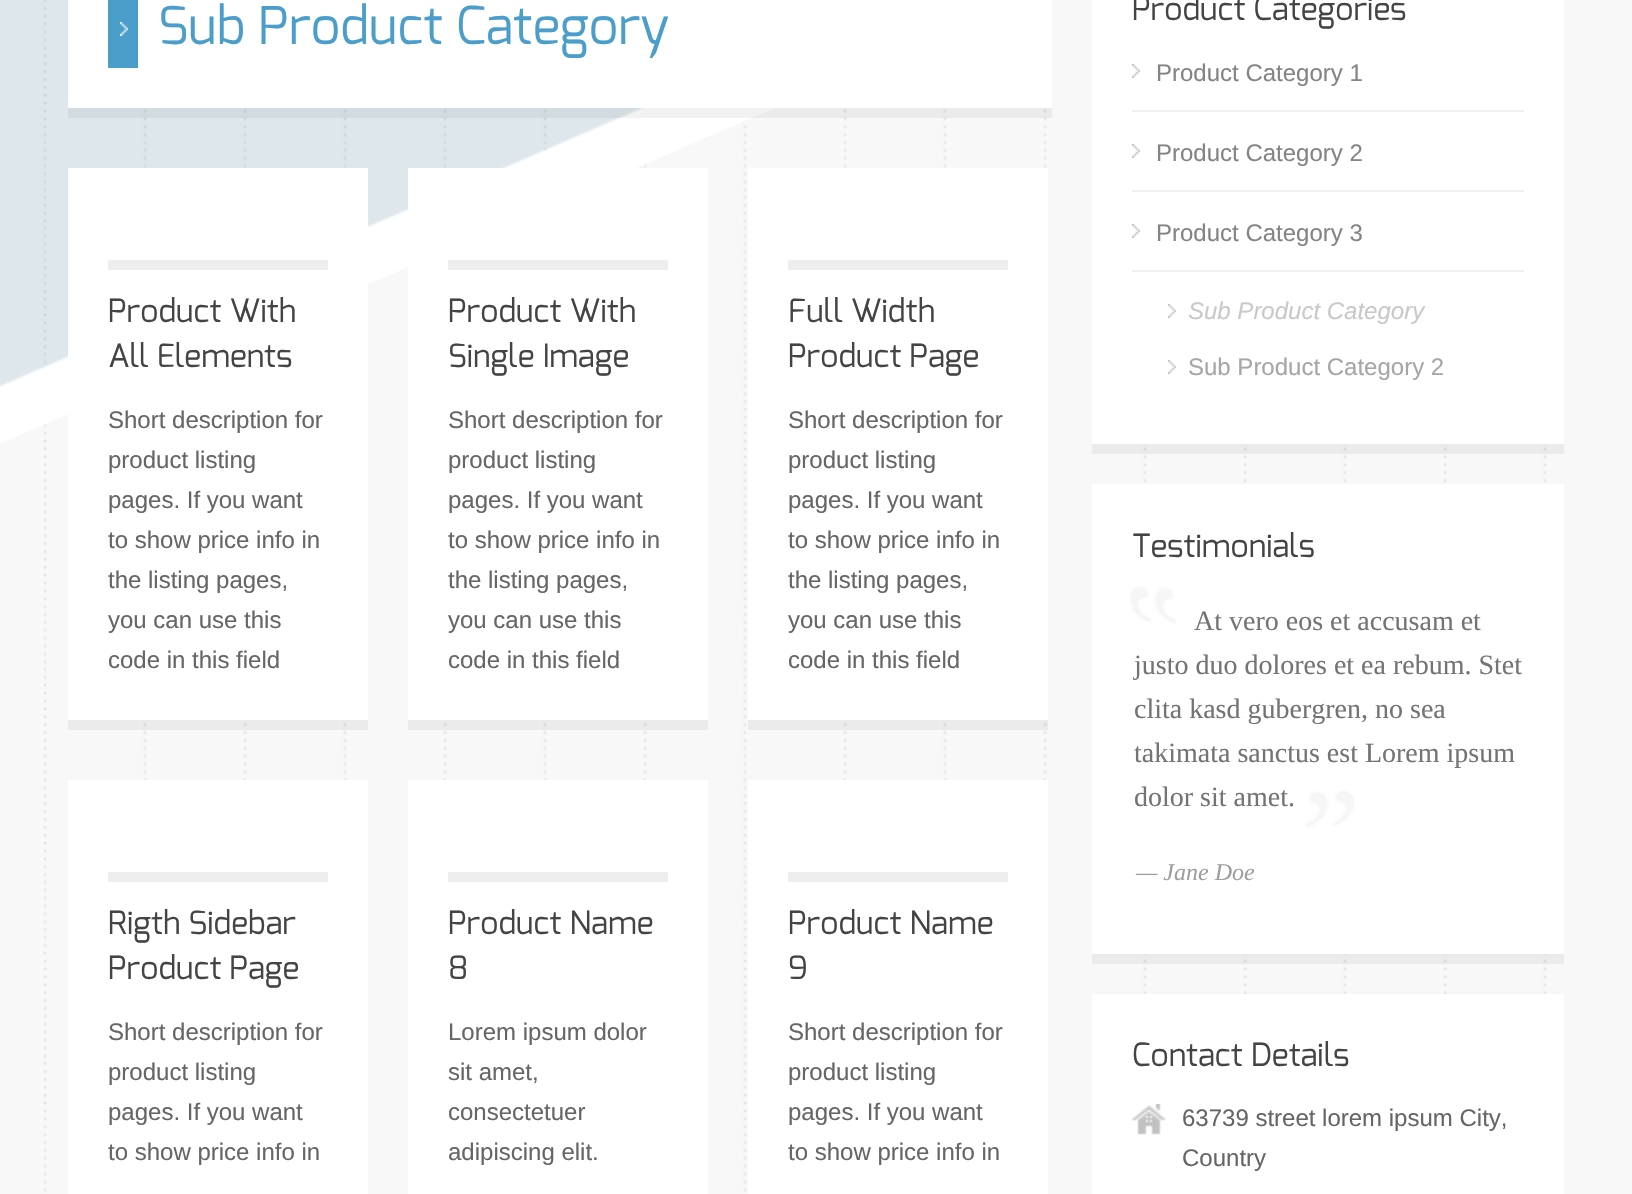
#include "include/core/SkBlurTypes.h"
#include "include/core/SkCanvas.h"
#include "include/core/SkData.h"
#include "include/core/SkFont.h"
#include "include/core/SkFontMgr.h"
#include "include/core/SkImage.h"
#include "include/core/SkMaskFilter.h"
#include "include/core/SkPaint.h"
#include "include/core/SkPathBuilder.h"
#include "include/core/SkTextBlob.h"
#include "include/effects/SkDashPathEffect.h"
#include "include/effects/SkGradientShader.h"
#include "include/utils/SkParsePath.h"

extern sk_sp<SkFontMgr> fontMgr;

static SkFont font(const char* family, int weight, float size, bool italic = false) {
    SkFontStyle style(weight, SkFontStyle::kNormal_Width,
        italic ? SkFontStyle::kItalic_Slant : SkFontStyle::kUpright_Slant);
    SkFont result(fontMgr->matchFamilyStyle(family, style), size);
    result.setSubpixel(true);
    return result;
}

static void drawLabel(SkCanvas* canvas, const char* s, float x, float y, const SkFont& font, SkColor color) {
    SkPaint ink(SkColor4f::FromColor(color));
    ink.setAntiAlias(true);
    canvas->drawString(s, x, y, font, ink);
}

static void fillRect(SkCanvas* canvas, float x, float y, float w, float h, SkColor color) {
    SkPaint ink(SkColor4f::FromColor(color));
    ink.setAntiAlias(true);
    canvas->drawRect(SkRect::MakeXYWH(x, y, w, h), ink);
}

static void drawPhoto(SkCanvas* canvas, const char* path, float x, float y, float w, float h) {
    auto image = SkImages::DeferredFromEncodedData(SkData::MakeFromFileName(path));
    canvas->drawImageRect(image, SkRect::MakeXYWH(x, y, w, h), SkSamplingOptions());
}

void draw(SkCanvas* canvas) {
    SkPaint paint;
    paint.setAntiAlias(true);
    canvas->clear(0xFFFFFFFF);
    drawPhoto(canvas, "assets/img1.png", 0, 0, 1632, 1194);
    drawPhoto(canvas, "assets/img2.png", 0, 0, 781, 444);
    fillRect(canvas, 68, 108, 984, 10, 0x0D000000);
    fillRect(canvas, 68, 0, 984, 108, 0xFFFFFFFF);
    fillRect(canvas, 108, 0, 30, 68, 0xFF4B9EC9);
    drawPhoto(canvas, "assets/img3.png", 120, 22, 8, 14);
    SkFont font1 = font("Exo", 400, 52);
    drawLabel(canvas, "Sub Product Category", 158, 44, font1, 0xFF4B9EC9);
    fillRect(canvas, 68, 720, 300, 10, 0x0D000000);
    fillRect(canvas, 68, 168, 300, 552, 0xFFFFFFFF);
    fillRect(canvas, 108, 260, 220, 10, 0xFFEEEEEE);
    SkFont font2 = font("Exo", 400, 32);
    drawLabel(canvas, "Product With", 108, 322, font2, 0xFF444444);
    drawLabel(canvas, "All Elements", 108, 367, font2, 0xFF444444);
    SkFont font3 = font("Liberation Sans", 400, 24);
    drawLabel(canvas, "Short description for", 108, 428, font3, 0xFF666666);
    drawLabel(canvas, "product listing", 108, 468, font3, 0xFF666666);
    drawLabel(canvas, "pages. If you want", 108, 508, font3, 0xFF666666);
    drawLabel(canvas, "to show price info in", 108, 548, font3, 0xFF666666);
    drawLabel(canvas, "the listing pages,", 108, 588, font3, 0xFF666666);
    drawLabel(canvas, "you can use this", 108, 628, font3, 0xFF666666);
    drawLabel(canvas, "code in this field", 108, 668, font3, 0xFF666666);
    fillRect(canvas, 408, 720, 300, 10, 0x0D000000);
    fillRect(canvas, 408, 168, 300, 552, 0xFFFFFFFF);
    fillRect(canvas, 448, 260, 220, 10, 0xFFEEEEEE);
    drawLabel(canvas, "Product With", 448, 322, font2, 0xFF444444);
    drawLabel(canvas, "Single Image", 448, 367, font2, 0xFF444444);
    drawLabel(canvas, "Short description for", 448, 428, font3, 0xFF666666);
    drawLabel(canvas, "product listing", 448, 468, font3, 0xFF666666);
    drawLabel(canvas, "pages. If you want", 448, 508, font3, 0xFF666666);
    drawLabel(canvas, "to show price info in", 448, 548, font3, 0xFF666666);
    drawLabel(canvas, "the listing pages,", 448, 588, font3, 0xFF666666);
    drawLabel(canvas, "you can use this", 448, 628, font3, 0xFF666666);
    drawLabel(canvas, "code in this field", 448, 668, font3, 0xFF666666);
    fillRect(canvas, 748, 720, 300, 10, 0x0D000000);
    fillRect(canvas, 748, 168, 300, 552, 0xFFFFFFFF);
    fillRect(canvas, 788, 260, 220, 10, 0xFFEEEEEE);
    drawLabel(canvas, "Full Width", 788, 322, font2, 0xFF444444);
    drawLabel(canvas, "Product Page", 788, 367, font2, 0xFF444444);
    drawLabel(canvas, "Short description for", 788, 428, font3, 0xFF666666);
    drawLabel(canvas, "product listing", 788, 468, font3, 0xFF666666);
    drawLabel(canvas, "pages. If you want", 788, 508, font3, 0xFF666666);
    drawLabel(canvas, "to show price info in", 788, 548, font3, 0xFF666666);
    drawLabel(canvas, "the listing pages,", 788, 588, font3, 0xFF666666);
    drawLabel(canvas, "you can use this", 788, 628, font3, 0xFF666666);
    drawLabel(canvas, "code in this field", 788, 668, font3, 0xFF666666);
    fillRect(canvas, 68, 780, 300, 414, 0xFFFFFFFF);
    fillRect(canvas, 108, 872, 220, 10, 0xFFEEEEEE);
    drawLabel(canvas, "Rigth Sidebar", 108, 934, font2, 0xFF444444);
    drawLabel(canvas, "Product Page", 108, 979, font2, 0xFF444444);
    drawLabel(canvas, "Short description for", 108, 1040, font3, 0xFF666666);
    drawLabel(canvas, "product listing", 108, 1080, font3, 0xFF666666);
    drawLabel(canvas, "pages. If you want", 108, 1120, font3, 0xFF666666);
    drawLabel(canvas, "to show price info in", 108, 1160, font3, 0xFF666666);
    fillRect(canvas, 408, 780, 300, 414, 0xFFFFFFFF);
    fillRect(canvas, 448, 872, 220, 10, 0xFFEEEEEE);
    drawLabel(canvas, "Product Name", 448, 934, font2, 0xFF444444);
    drawLabel(canvas, "8", 448, 979, font2, 0xFF444444);
    drawLabel(canvas, "Lorem ipsum dolor", 448, 1040, font3, 0xFF666666);
    drawLabel(canvas, "sit amet,", 448, 1080, font3, 0xFF666666);
    drawLabel(canvas, "consectetuer", 448, 1120, font3, 0xFF666666);
    drawLabel(canvas, "adipiscing elit.", 448, 1160, font3, 0xFF666666);
    fillRect(canvas, 748, 780, 300, 414, 0xFFFFFFFF);
    fillRect(canvas, 788, 872, 220, 10, 0xFFEEEEEE);
    drawLabel(canvas, "Product Name", 788, 934, font2, 0xFF444444);
    drawLabel(canvas, "9", 788, 979, font2, 0xFF444444);
    drawLabel(canvas, "Short description for", 788, 1040, font3, 0xFF666666);
    drawLabel(canvas, "product listing", 788, 1080, font3, 0xFF666666);
    drawLabel(canvas, "pages. If you want", 788, 1120, font3, 0xFF666666);
    drawLabel(canvas, "to show price info in", 788, 1160, font3, 0xFF666666);
    fillRect(canvas, 1092, 444, 472, 10, 0x0D000000);
    fillRect(canvas, 1092, 0, 472, 444, 0xFFFFFFFF);
    drawLabel(canvas, "Product Categories", 1132, 20, font2, 0xFF444444);
    drawPhoto(canvas, "assets/img4.png", 1132, 64, 8, 14);
    fillRect(canvas, 1132, 110, 392, 2, 0xFFF0F0F0);
    drawLabel(canvas, "Product Category 1", 1156, 81, font3, 0xFF848484);
    drawPhoto(canvas, "assets/img4.png", 1132, 144, 8, 14);
    fillRect(canvas, 1132, 190, 392, 2, 0xFFF0F0F0);
    drawLabel(canvas, "Product Category 2", 1156, 161, font3, 0xFF848484);
    drawPhoto(canvas, "assets/img4.png", 1132, 224, 8, 14);
    drawLabel(canvas, "Product Category 3", 1156, 241, font3, 0xFF848484);
    fillRect(canvas, 1132, 270, 392, 2, 0xFFF0F0F0);
    drawPhoto(canvas, "assets/img4.png", 1168, 304, 8, 14);
    SkFont font4 = font("Liberation Sans", 400, 24, true);
    drawLabel(canvas, "Sub Product Category", 1188, 319, font4, 0xFFC9C9C9);
    drawPhoto(canvas, "assets/img4.png", 1168, 360, 8, 14);
    drawLabel(canvas, "Sub Product Category 2", 1188, 375, font3, 0xFFA6A6A6);
    fillRect(canvas, 1092, 954, 472, 10, 0x0D000000);
    fillRect(canvas, 1092, 484, 472, 470, 0xFFFFFFFF);
    drawLabel(canvas, "Testimonials", 1132, 557, font2, 0xFF444444);
    drawPhoto(canvas, "assets/img5.png", 1130, 586, 46, 38);
    SkFont font5 = font("Liberation Serif", 400, 28);
    drawLabel(canvas, "At vero eos et accusam et", 1194, 630, font5, 0xFF747474);
    drawLabel(canvas, "justo duo dolores et ea rebum. Stet", 1134, 674, font5, 0xFF747474);
    drawLabel(canvas, "clita kasd gubergren, no sea", 1134, 718, font5, 0xFF747474);
    drawLabel(canvas, "takimata sanctus est Lorem ipsum", 1134, 762, font5, 0xFF747474);
    drawLabel(canvas, "dolor sit amet.", 1134, 806, font5, 0xFF747474);
    drawPhoto(canvas, "assets/img6.png", 1306, 790, 48, 38);
    SkFont font6 = font("Liberation Serif", 400, 24, true);
    drawLabel(canvas, "— Jane Doe", 1136, 880, font6, 0xFF9E9E9E);
    fillRect(canvas, 1092, 994, 472, 200, 0xFFFFFFFF);
    drawLabel(canvas, "Contact Details", 1132, 1066, font2, 0xFF444444);
    drawPhoto(canvas, "assets/img7.png", 1132, 1104, 35, 31);
    drawLabel(canvas, "63739 street lorem ipsum City,", 1182, 1126, font3, 0xFF666666);
    drawLabel(canvas, "Country", 1182, 1166, font3, 0xFF666666);
}
